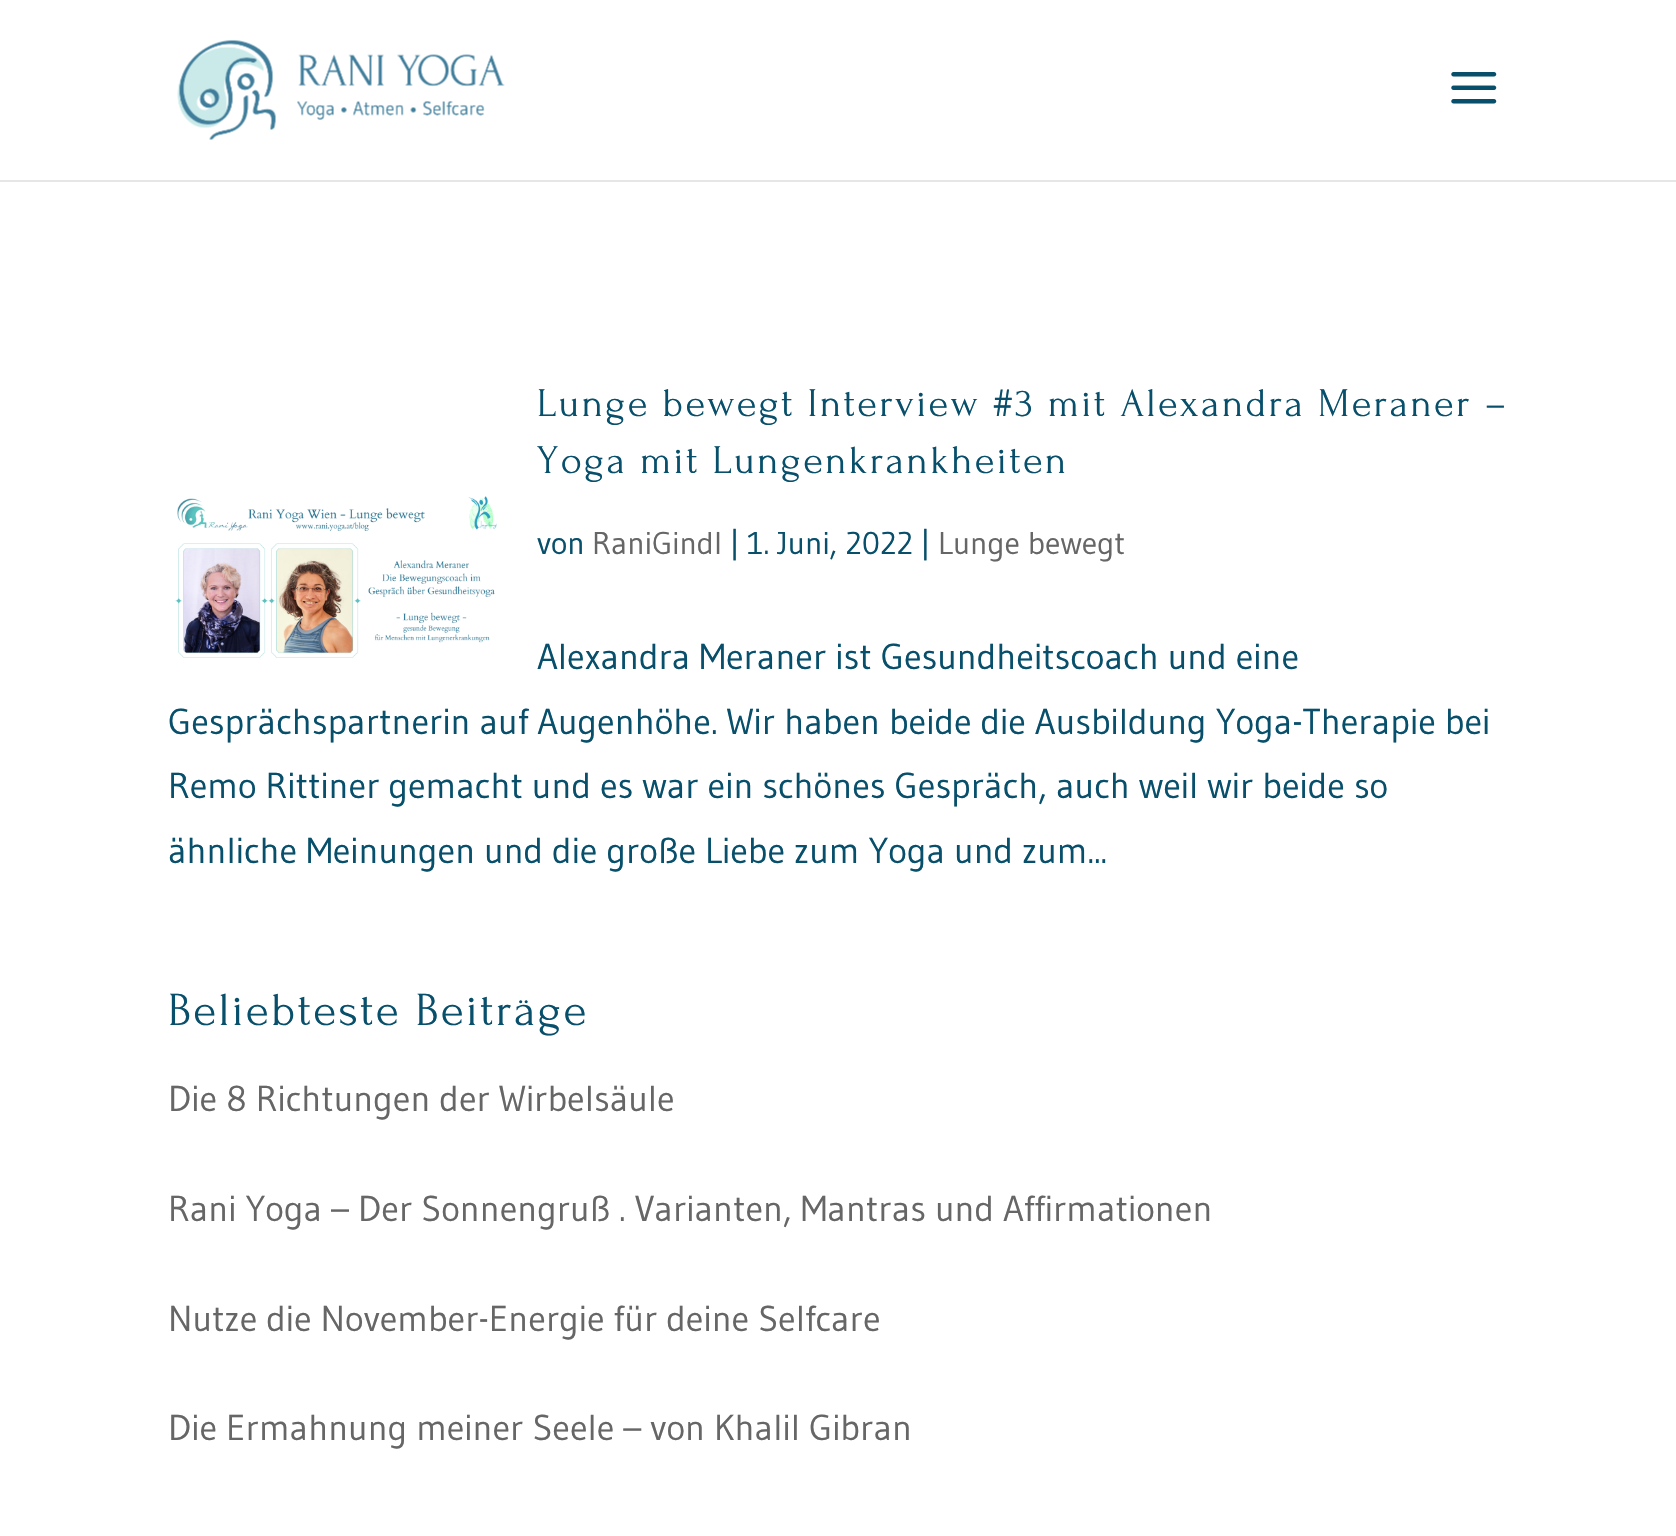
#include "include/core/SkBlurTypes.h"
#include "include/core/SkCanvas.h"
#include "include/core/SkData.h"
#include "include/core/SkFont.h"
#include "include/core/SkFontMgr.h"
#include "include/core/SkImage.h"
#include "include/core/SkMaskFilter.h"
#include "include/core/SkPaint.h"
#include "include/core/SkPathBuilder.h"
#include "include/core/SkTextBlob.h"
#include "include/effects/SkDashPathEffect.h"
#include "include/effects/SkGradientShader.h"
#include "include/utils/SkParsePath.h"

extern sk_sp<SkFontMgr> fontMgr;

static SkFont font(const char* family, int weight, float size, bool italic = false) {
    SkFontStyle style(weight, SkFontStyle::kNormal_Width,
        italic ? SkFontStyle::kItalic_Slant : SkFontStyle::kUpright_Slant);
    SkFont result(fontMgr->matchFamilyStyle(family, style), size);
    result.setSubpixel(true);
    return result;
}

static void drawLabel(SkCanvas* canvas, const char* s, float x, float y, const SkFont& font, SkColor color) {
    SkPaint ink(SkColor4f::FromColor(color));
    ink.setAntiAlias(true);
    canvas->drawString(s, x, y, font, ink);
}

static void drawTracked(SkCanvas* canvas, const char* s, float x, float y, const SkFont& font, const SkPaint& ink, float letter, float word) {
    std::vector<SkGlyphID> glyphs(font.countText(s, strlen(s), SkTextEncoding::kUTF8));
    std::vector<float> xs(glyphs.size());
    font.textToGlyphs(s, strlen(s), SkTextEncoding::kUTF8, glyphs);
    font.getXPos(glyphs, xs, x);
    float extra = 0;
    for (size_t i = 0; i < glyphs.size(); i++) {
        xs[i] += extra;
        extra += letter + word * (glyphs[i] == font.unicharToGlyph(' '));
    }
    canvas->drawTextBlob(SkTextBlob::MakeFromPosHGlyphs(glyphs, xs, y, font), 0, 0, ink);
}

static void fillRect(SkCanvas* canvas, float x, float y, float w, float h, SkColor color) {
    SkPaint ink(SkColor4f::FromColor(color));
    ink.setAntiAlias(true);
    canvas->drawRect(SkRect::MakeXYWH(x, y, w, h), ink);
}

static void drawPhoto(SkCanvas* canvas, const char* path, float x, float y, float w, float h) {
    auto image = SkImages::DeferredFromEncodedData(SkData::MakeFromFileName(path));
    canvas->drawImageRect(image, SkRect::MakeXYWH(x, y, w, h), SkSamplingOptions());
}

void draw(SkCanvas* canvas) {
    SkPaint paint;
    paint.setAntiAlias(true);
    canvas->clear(0xFFFFFFFF);
    fillRect(canvas, 0, 180, 1676, 2, 0xFFE6E6E6);
    drawPhoto(canvas, "assets/img1.png", 177, 40, 328, 100);
    drawPhoto(canvas, "assets/img2.png", 1451, 72, 46, 32);
    SkFont font1 = font("Forum", 400, 40.5f);
    paint.setColor(0xFF074F6B);
    drawTracked(canvas, "Lunge bewegt Interview #3 mit Alexandra Meraner –", 537, 416, font1, paint, 2.25f, 0);
    drawTracked(canvas, "Yoga mit Lungenkrankheiten", 537, 473, font1, paint, 2.25f, 0);
    drawPhoto(canvas, "assets/img3.png", 175, 496, 322, 162);
    SkFont font2 = font("Gudea", 400, 31.5f);
    drawLabel(canvas, "von", 537, 554, font2, 0xFF074F6B);
    drawLabel(canvas, "RaniGindl", 592, 554, font2, 0xFF666666);
    drawLabel(canvas, "| 1. Juni, 2022 |", 730, 554, font2, 0xFF074F6B);
    drawLabel(canvas, "Lunge bewegt", 938, 554, font2, 0xFF666666);
    SkFont font3 = font("Gudea", 400, 36);
    drawLabel(canvas, "Alexandra Meraner ist Gesundheitscoach und eine", 537, 669, font3, 0xFF074F6B);
    drawLabel(canvas, "Gesprächspartnerin auf Augenhöhe. Wir haben beide die Ausbildung Yoga-Therapie bei", 168, 734, font3, 0xFF074F6B);
    drawLabel(canvas, "Remo Rittiner gemacht und es war ein schönes Gespräch, auch weil wir beide so", 168, 798, font3, 0xFF074F6B);
    drawLabel(canvas, "ähnliche Meinungen und die große Liebe zum Yoga und zum...", 168, 863, font3, 0xFF074F6B);
    SkFont font4 = font("Forum", 400, 47.25f);
    drawTracked(canvas, "Beliebteste Beiträge", 168, 1025, font4, paint, 2.25f, 0);
    drawLabel(canvas, "Die 8 Richtungen der Wirbelsäule", 168, 1111, font3, 0xFF666666);
    drawLabel(canvas, "Rani Yoga – Der Sonnengruß . Varianten, Mantras und Affirmationen", 168, 1221, font3, 0xFF666666);
    drawLabel(canvas, "Nutze die November-Energie für deine Selfcare", 168, 1331, font3, 0xFF666666);
    drawLabel(canvas, "Die Ermahnung meiner Seele – von Khalil Gibran", 168, 1440, font3, 0xFF666666);
}
